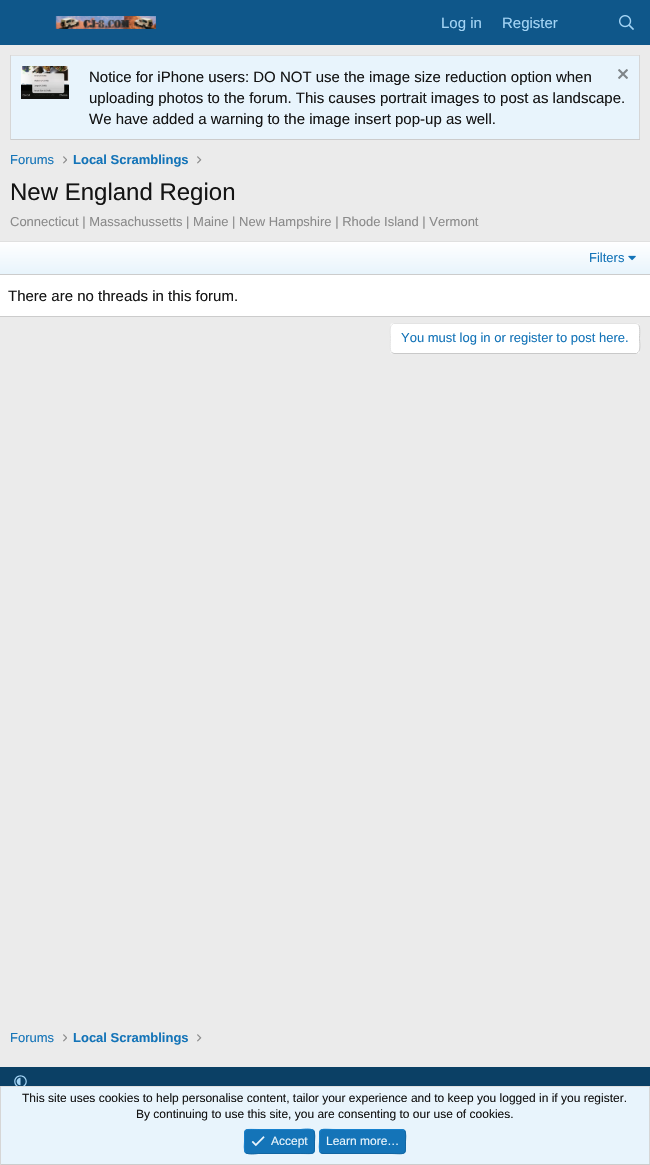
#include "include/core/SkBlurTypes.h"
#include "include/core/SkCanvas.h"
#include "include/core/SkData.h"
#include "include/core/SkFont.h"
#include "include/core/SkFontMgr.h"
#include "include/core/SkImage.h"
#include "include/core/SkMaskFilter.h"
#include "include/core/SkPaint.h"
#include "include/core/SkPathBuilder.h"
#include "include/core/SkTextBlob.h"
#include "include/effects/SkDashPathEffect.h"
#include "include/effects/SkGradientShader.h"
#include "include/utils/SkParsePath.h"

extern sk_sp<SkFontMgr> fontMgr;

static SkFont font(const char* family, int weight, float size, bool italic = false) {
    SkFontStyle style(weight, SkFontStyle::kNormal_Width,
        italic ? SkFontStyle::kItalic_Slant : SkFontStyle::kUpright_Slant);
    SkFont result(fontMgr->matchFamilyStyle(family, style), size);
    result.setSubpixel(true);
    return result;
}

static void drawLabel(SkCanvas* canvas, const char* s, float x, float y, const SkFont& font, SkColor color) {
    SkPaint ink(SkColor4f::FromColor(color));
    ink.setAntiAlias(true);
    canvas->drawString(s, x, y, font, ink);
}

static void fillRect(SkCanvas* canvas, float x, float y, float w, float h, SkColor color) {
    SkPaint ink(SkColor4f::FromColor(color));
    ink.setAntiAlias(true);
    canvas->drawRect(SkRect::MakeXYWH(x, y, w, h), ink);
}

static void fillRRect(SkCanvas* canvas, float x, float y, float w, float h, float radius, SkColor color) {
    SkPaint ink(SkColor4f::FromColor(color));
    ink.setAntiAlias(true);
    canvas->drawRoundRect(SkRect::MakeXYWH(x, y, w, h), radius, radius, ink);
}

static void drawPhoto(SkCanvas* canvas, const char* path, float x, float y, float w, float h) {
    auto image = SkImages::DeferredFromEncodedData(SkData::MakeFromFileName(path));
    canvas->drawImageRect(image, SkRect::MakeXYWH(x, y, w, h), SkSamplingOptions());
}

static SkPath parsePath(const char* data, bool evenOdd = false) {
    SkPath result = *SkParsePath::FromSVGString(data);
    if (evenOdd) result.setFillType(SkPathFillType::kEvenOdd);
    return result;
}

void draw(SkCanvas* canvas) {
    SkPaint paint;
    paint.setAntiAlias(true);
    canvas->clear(0xFFEBEBEB);
    fillRect(canvas, 0, 0, 650, 45, 0xFF0F578A);
    drawPhoto(canvas, "assets/img1.png", 55, 16, 101, 13);
    SkFont font1 = font("Liberation Sans", 400, 15);
    drawLabel(canvas, "Log in", 441, 28, font1, 0xFFA3D4F5);
    drawLabel(canvas, "Register", 502, 28, font1, 0xFFA3D4F5);
    drawPhoto(canvas, "assets/img2.png", 619, 15, 15, 15);
    fillRect(canvas, 10, 55, 630, 1, 0xFFE0E0E0);
    fillRect(canvas, 639, 55, 1, 85, 0xFFD6D6D6);
    fillRect(canvas, 10, 139, 630, 1, 0xFFCCCCCC);
    fillRect(canvas, 10, 55, 1, 85, 0xFFD6D6D6);
    fillRect(canvas, 11, 56, 628, 83, 0xFFE8F4FC);
    drawPhoto(canvas, "assets/img3.png", 21, 66, 48, 33);
    drawLabel(canvas, "Notice for iPhone users: DO NOT use the image size reduction option when", 89, 82, font1, 0xFF141414);
    drawPhoto(canvas, "assets/img4.png", 618, 69, 10, 10);
    drawLabel(canvas, "uploading photos to the forum. This causes portrait images to post as landscape.", 89, 103, font1, 0xFF141414);
    drawLabel(canvas, "We have added a warning to the image insert pop-up as well.", 89, 124, font1, 0xFF141414);
    SkFont font2 = font("Liberation Sans", 400, 13);
    drawLabel(canvas, "Forums", 10, 164, font2, 0xFF1474B8);
    drawPhoto(canvas, "assets/img5.png", 63, 156, 4, 8);
    SkFont font3 = font("Liberation Sans", 700, 13);
    drawLabel(canvas, "Local Scramblings", 73, 164, font3, 0xFF1474B8);
    drawPhoto(canvas, "assets/img6.png", 197, 156, 5, 8);
    SkFont font4 = font("Liberation Sans", 400, 24);
    drawLabel(canvas, "New England Region", 10, 200, font4, 0xFF141414);
    drawLabel(canvas, "Connecticut | Massachussetts | Maine | New Hampshire | Rhode Island | Vermont", 10, 226, font2, 0xFF8A8A8A);
    fillRect(canvas, 0, 242, 650, 74, 0xFFFFFFFF);
    fillRect(canvas, 0, 241, 650, 1, 0xFFE0E0E0);
    fillRect(canvas, 0, 316, 650, 1, 0xFFCCCCCC);
    {
        const SkColor colors[] = {0xFFE8F4FC, 0xFFFFFFFF};
        const float stops[] = {0, 1};
        const SkPoint ends[] = {{325, 274}, {325, 242}};
        paint.setShader(SkGradientShader::MakeLinear(ends, colors, stops, 2, SkTileMode::kClamp));
        paint.setAlpha(255);
    }
    canvas->drawPath(parsePath("M3 242H647C648.5 242 650 243.5 650 245V274H0V245C0 243.5 1.5 242 3 242Z"), paint);
    fillRect(canvas, 0, 274, 650, 1, 0xFFCCCCCC);
    drawLabel(canvas, "Filters", 589, 262, font2, 0xFF1474B8);
    drawPhoto(canvas, "assets/img7.png", 628, 255, 8, 6);
    drawLabel(canvas, "There are no threads in this forum.", 8, 301, font1, 0xFF141414);
    fillRRect(canvas, 390, 323, 250, 31, 4, 0xFFFFFFFF);
    paint.setStroke(true);
    paint.setStrokeWidth(1);
    paint.setShader(nullptr);
    paint.setColor(0xFFC9C9C9);
    canvas->drawPath(parsePath("M638.5 324.5C640.5 327 639.5 335.5 639.5 338.5C639.5 341.5 641 350.5 638 352.5L636.5 353.5H394L391.5 352.5"), paint);
    paint.setColor(0xFFE3E3E3);
    canvas->drawPath(parsePath("M391.5 352.5C389.5 350 390.5 341.5 390.5 338.5C390.5 335.5 389 326.5 392 324.5L393.5 323.5H636L638.5 324.5"), paint);
    drawLabel(canvas, "You must log in or register to post here.", 401, 342, font2, 0xFF1474B8);
    drawLabel(canvas, "Forums", 10, 1042, font2, 0xFF1474B8);
    drawPhoto(canvas, "assets/img5.png", 63, 1034, 4, 8);
    drawLabel(canvas, "Local Scramblings", 73, 1042, font3, 0xFF1474B8);
    drawPhoto(canvas, "assets/img6.png", 197, 1034, 5, 8);
    fillRect(canvas, 0, 1067, 650, 19, 0xFF0B4065);
    drawPhoto(canvas, "assets/img8.png", 14, 1075, 13, 11);
    fillRect(canvas, 1, 1087, 648, 77, 0xFFE8F4FC);
    fillRect(canvas, 0, 1086, 650, 1, 0xFFE0E0E0);
    fillRect(canvas, 649, 1086, 1, 79, 0xFFD6D6D6);
    fillRect(canvas, 0, 1164, 650, 1, 0xFFCCCCCC);
    fillRect(canvas, 0, 1086, 1, 79, 0xFFD6D6D6);
    SkFont font5 = font("Liberation Sans", 400, 12);
    drawLabel(canvas, "This site uses cookies to help personalise content, tailor your experience and to keep you logged in if you register.", 22, 1102, font5, 0xFF141414);
    drawLabel(canvas, "By continuing to use this site, you are consenting to our use of cookies.", 136, 1118, font5, 0xFF141414);
    fillRRect(canvas, 244, 1129, 71, 25, 4, 0xFF1474B8);
    paint.setColor(0xFF1265A1);
    canvas->drawPath(parsePath("M313.5 1130.5C315.5 1133 314.5 1139 314.5 1141.5C314.5 1155.5 315.5 1153.5 300.5 1153.5H258.5C257.5 1153.5 248 1155 245.5 1152.5"), paint);
    paint.setColor(0xFF1782CF);
    canvas->drawPath(parsePath("M245.5 1152.5C243.5 1150 244.5 1144 244.5 1141.5C244.5 1127.5 243.5 1129.5 258.5 1129.5H300.5C301.5 1129.5 311 1128 313.5 1130.5"), paint);
    drawPhoto(canvas, "assets/img9.png", 251, 1136, 14, 11);
    drawLabel(canvas, "Accept", 271, 1145, font5, 0xFFE8F4FC);
    fillRRect(canvas, 319, 1129, 87, 25, 4, 0xFF1474B8);
    paint.setColor(0xFF1265A1);
    canvas->drawPath(parsePath("M404.5 1130.5C406.5 1133 405.5 1139 405.5 1141.5C405.5 1156.5 406 1153.5 389 1153.5H323L320.5 1152.5"), paint);
    paint.setColor(0xFF1782CF);
    canvas->drawPath(parsePath("M320.5 1152.5C318.5 1150 319.5 1144 319.5 1141.5C319.5 1126.5 319 1129.5 336 1129.5H402L404.5 1130.5"), paint);
    drawLabel(canvas, "Learn more…", 326, 1145, font5, 0xFFE8F4FC);
}
